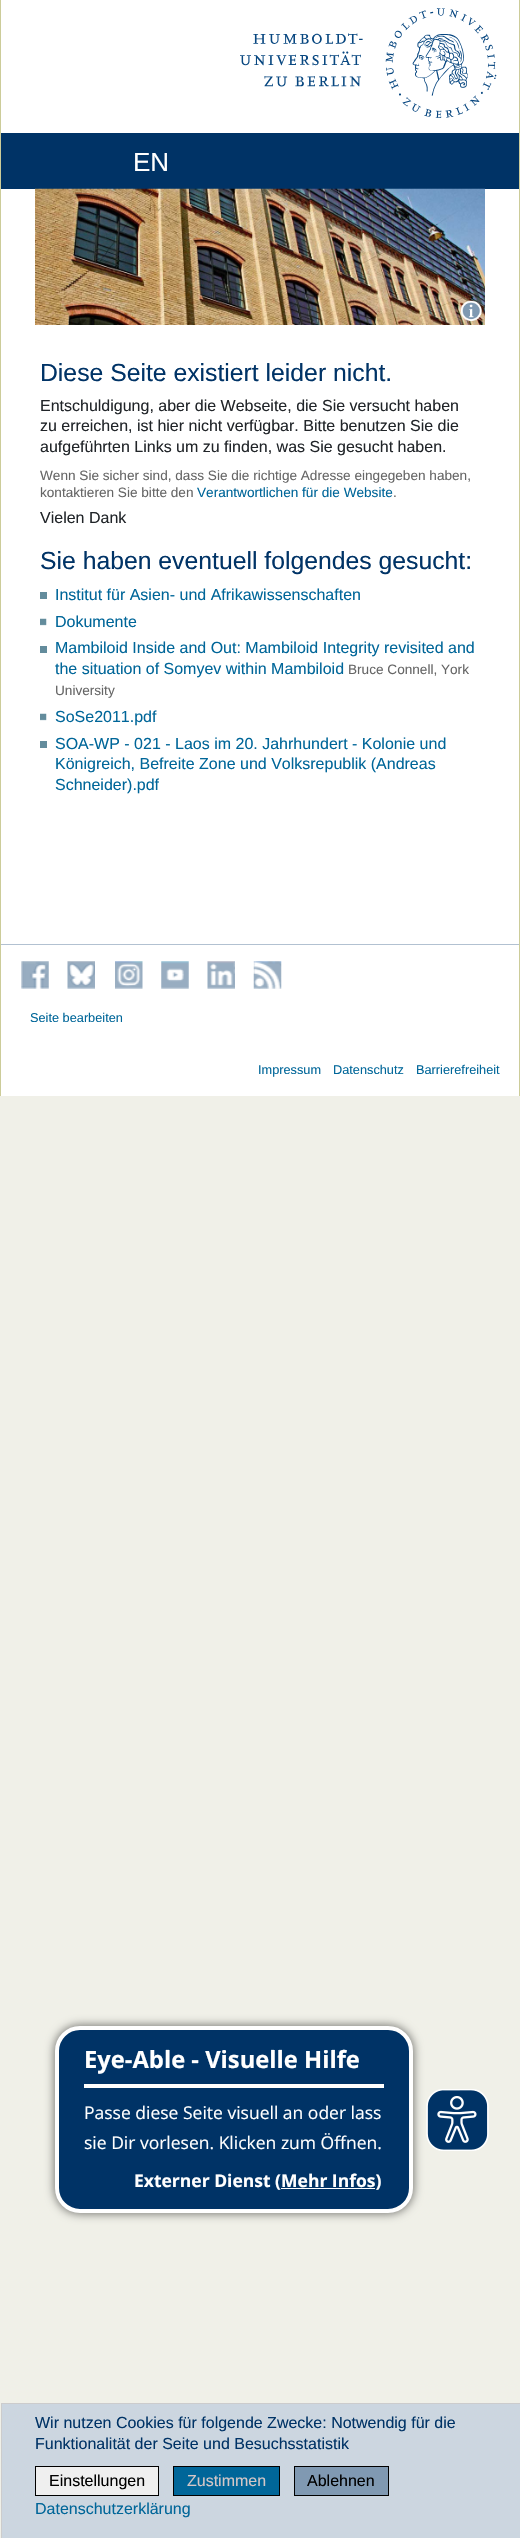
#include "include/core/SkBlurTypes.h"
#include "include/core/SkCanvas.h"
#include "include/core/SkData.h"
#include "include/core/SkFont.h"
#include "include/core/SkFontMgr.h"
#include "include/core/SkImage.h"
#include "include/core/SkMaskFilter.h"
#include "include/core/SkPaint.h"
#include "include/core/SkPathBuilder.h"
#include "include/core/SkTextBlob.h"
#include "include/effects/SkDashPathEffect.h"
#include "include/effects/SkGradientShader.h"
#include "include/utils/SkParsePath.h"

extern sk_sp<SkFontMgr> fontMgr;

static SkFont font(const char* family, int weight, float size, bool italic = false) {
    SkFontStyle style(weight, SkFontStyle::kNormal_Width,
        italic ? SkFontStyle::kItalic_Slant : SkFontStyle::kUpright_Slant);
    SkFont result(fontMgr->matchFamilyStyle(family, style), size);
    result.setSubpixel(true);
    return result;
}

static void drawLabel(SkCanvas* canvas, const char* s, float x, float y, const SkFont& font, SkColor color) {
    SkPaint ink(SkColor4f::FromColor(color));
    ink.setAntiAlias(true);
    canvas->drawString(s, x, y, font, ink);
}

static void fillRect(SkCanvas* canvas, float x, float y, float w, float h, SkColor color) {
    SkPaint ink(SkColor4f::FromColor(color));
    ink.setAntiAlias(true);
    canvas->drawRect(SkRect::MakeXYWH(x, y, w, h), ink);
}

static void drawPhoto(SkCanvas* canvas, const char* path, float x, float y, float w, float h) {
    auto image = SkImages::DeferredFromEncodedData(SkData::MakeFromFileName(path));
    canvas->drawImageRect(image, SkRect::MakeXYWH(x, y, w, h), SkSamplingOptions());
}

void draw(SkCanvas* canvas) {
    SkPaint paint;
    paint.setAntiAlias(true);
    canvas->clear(0xFFF0F0E8);
    fillRect(canvas, 1, 0, 518, 1096, 0xFFFFFFFF);
    drawPhoto(canvas, "assets/img1.png", 240, 8, 257, 110);
    fillRect(canvas, 1, 133, 518, 56, 0xFF003366);
    SkFont font1 = font("Liberation Sans", 400, 26);
    drawLabel(canvas, "EN", 133, 171, font1, 0xFFFFFFFF);
    drawPhoto(canvas, "assets/img2.png", 35, 188, 450, 137);
    drawPhoto(canvas, "assets/img3.png", 460, 300, 22, 21);
    fillRect(canvas, 519, 0, 1, 1096, 0xFFCCCC99);
    fillRect(canvas, 0, 0, 1, 1096, 0xFFCCCC99);
    SkFont font2 = font("Liberation Sans", 400, 24.75f);
    drawLabel(canvas, "Diese Seite existiert leider nicht.", 40, 381, font2, 0xFF003366);
    SkFont font3 = font("Liberation Sans", 400, 16);
    drawLabel(canvas, "Entschuldigung, aber die Webseite, die Sie versucht haben", 40, 411, font3, 0xFF212529);
    drawLabel(canvas, "zu erreichen, ist hier nicht verfügbar. Bitte benutzen Sie die", 40, 431, font3, 0xFF212529);
    drawLabel(canvas, "aufgeführten Links um zu finden, was Sie gesucht haben.", 40, 452, font3, 0xFF212529);
    SkFont font4 = font("Liberation Sans", 400, 13.6f);
    drawLabel(canvas, "Wenn Sie sicher sind, dass Sie die richtige Adresse eingegeben haben,", 40, 480, font4, 0xFF666666);
    drawLabel(canvas, "kontaktieren Sie bitte den", 40, 497, font4, 0xFF666666);
    drawLabel(canvas, "Verantwortlichen für die Website", 197, 497, font4, 0xFF006699);
    drawLabel(canvas, ".", 393, 497, font4, 0xFF666666);
    drawLabel(canvas, "Vielen Dank", 40, 523, font3, 0xFF212529);
    drawLabel(canvas, "Sie haben eventuell folgendes gesucht:", 40, 569, font2, 0xFF003366);
    fillRect(canvas, 40, 592, 7, 7, 0xFF638C9C);
    drawLabel(canvas, "Institut für Asien- und Afrikawissenschaften", 55, 600, font3, 0xFF006699);
    drawPhoto(canvas, "assets/img4.png", 40, 618, 7, 8);
    drawLabel(canvas, "Dokumente", 55, 627, font3, 0xFF006699);
    fillRect(canvas, 40, 646, 7, 7, 0xFF638C9C);
    drawLabel(canvas, "Mambiloid Inside and Out: Mambiloid Integrity revisited and", 55, 653, font3, 0xFF006699);
    drawLabel(canvas, "the situation of Somyev within Mambiloid", 55, 674, font3, 0xFF006699);
    drawLabel(canvas, "Bruce Connell, York", 348, 674, font4, 0xFF666666);
    drawLabel(canvas, "University", 55, 695, font4, 0xFF666666);
    drawPhoto(canvas, "assets/img4.png", 40, 713, 7, 8);
    drawLabel(canvas, "SoSe2011.pdf", 55, 722, font3, 0xFF006699);
    fillRect(canvas, 40, 741, 7, 7, 0xFF638C9C);
    drawLabel(canvas, "SOA-WP - 021 - Laos im 20. Jahrhundert - Kolonie und", 55, 749, font3, 0xFF006699);
    drawLabel(canvas, "Königreich, Befreite Zone und Volksrepublik (Andreas", 55, 769, font3, 0xFF006699);
    drawLabel(canvas, "Schneider).pdf", 55, 790, font3, 0xFF006699);
    fillRect(canvas, 1, 944, 518, 1, 0xFFB2C1D1);
    drawPhoto(canvas, "assets/img5.png", 21, 961, 28, 28);
    drawPhoto(canvas, "assets/img6.png", 67, 961, 28, 28);
    drawPhoto(canvas, "assets/img7.png", 115, 961, 28, 28);
    drawPhoto(canvas, "assets/img8.png", 161, 961, 28, 28);
    drawPhoto(canvas, "assets/img9.png", 207, 961, 28, 28);
    drawPhoto(canvas, "assets/img10.png", 253, 961, 29, 28);
    SkFont font5 = font("Liberation Sans", 400, 12.75f);
    drawLabel(canvas, "Seite bearbeiten", 30, 1022, font5, 0xFF006699);
    drawLabel(canvas, "Impressum", 258, 1074, font5, 0xFF006699);
    drawLabel(canvas, "Datenschutz", 333, 1074, font5, 0xFF006699);
    drawLabel(canvas, "Barrierefreiheit", 416, 1074, font5, 0xFF006699);
    paint.setColor(0xFFCCD6E0);
    canvas->drawRect(SkRect::MakeXYWH(1.5f, 2403.5f, 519, 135), paint);
    paint.setStroke(true);
    paint.setStrokeWidth(1);
    paint.setColor(0xFFCCCCCC);
    canvas->drawRect(SkRect::MakeXYWH(1.5f, 2403.5f, 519, 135), paint);
    drawLabel(canvas, "Wir nutzen Cookies für folgende Zwecke: Notwendig für die", 35, 2428, font3, 0xFF003366);
    drawLabel(canvas, "Funktionalität der Seite und Besuchsstatistik", 35, 2449, font3, 0xFF003366);
    paint.setStroke(false);
    paint.setColor(0xFFEFEFEF);
    canvas->drawRect(SkRect::MakeXYWH(35.5f, 2466.5f, 123, 29), paint);
    paint.setStroke(true);
    paint.setColor(0xFF000000);
    canvas->drawRect(SkRect::MakeXYWH(35.5f, 2466.5f, 123, 29), paint);
    drawLabel(canvas, "Einstellungen", 49, 2486, font3, 0xFF000000);
    paint.setStroke(false);
    paint.setColor(0xFF006699);
    canvas->drawRect(SkRect::MakeXYWH(173.5f, 2466.5f, 106, 29), paint);
    paint.setStroke(true);
    paint.setColor(0xFF000000);
    canvas->drawRect(SkRect::MakeXYWH(173.5f, 2466.5f, 106, 29), paint);
    drawLabel(canvas, "Zustimmen", 187, 2486, font3, 0xFFD5C7C7);
    paint.setStroke(false);
    paint.setColor(0xFF8099B2);
    canvas->drawRect(SkRect::MakeXYWH(294.5f, 2466.5f, 94, 29), paint);
    paint.setStroke(true);
    paint.setColor(0xFF000000);
    canvas->drawRect(SkRect::MakeXYWH(294.5f, 2466.5f, 94, 29), paint);
    drawLabel(canvas, "Ablehnen", 307, 2486, font3, 0xFF000000);
    drawLabel(canvas, "Datenschutzerklärung", 35, 2514, font3, 0xFF006699);
    paint.setStroke(false);
    paint.setColor(0x80000000);
    paint.setMaskFilter(SkMaskFilter::MakeBlur(kNormal_SkBlurStyle, 5));
    canvas->drawRoundRect(SkRect::MakeXYWH(54, 2025, 360, 189), 26, 26, paint);
    paint.setMaskFilter(nullptr);
    paint.setColor(0xFF003366);
    canvas->drawRoundRect(SkRect::MakeXYWH(57, 2028, 354, 183), 23, 23, paint);
    paint.setStroke(true);
    paint.setStrokeWidth(4);
    paint.setColor(0xFFFFFFFF);
    canvas->drawRoundRect(SkRect::MakeXYWH(57, 2028, 354, 183), 23, 23, paint);
    fillRect(canvas, 84, 2084, 300, 4, 0xFFFFFFFF);
    SkFont font6 = font("Open Sans", 700, 23.75f);
    drawLabel(canvas, "Eye-Able - Visuelle Hilfe", 84, 2068, font6, 0xFFFFFFFF);
    SkFont font7 = font("Open Sans", 400, 17.5f);
    drawLabel(canvas, "Passe diese Seite visuell an oder lass", 84, 2119, font7, 0xFFFFFFFF);
    drawLabel(canvas, "sie Dir vorlesen. Klicken zum Öffnen.", 84, 2149, font7, 0xFFFFFFFF);
    SkFont font8 = font("Open Sans", 700, 17.5f);
    drawLabel(canvas, "Externer Dienst (Mehr Infos)", 134, 2187, font8, 0xFFFFFFFF);
    fillRect(canvas, 281, 2188, 94, 1, 0xFFFFFFFF);
    drawPhoto(canvas, "assets/img11.png", 426, 2089, 63, 62);
}
